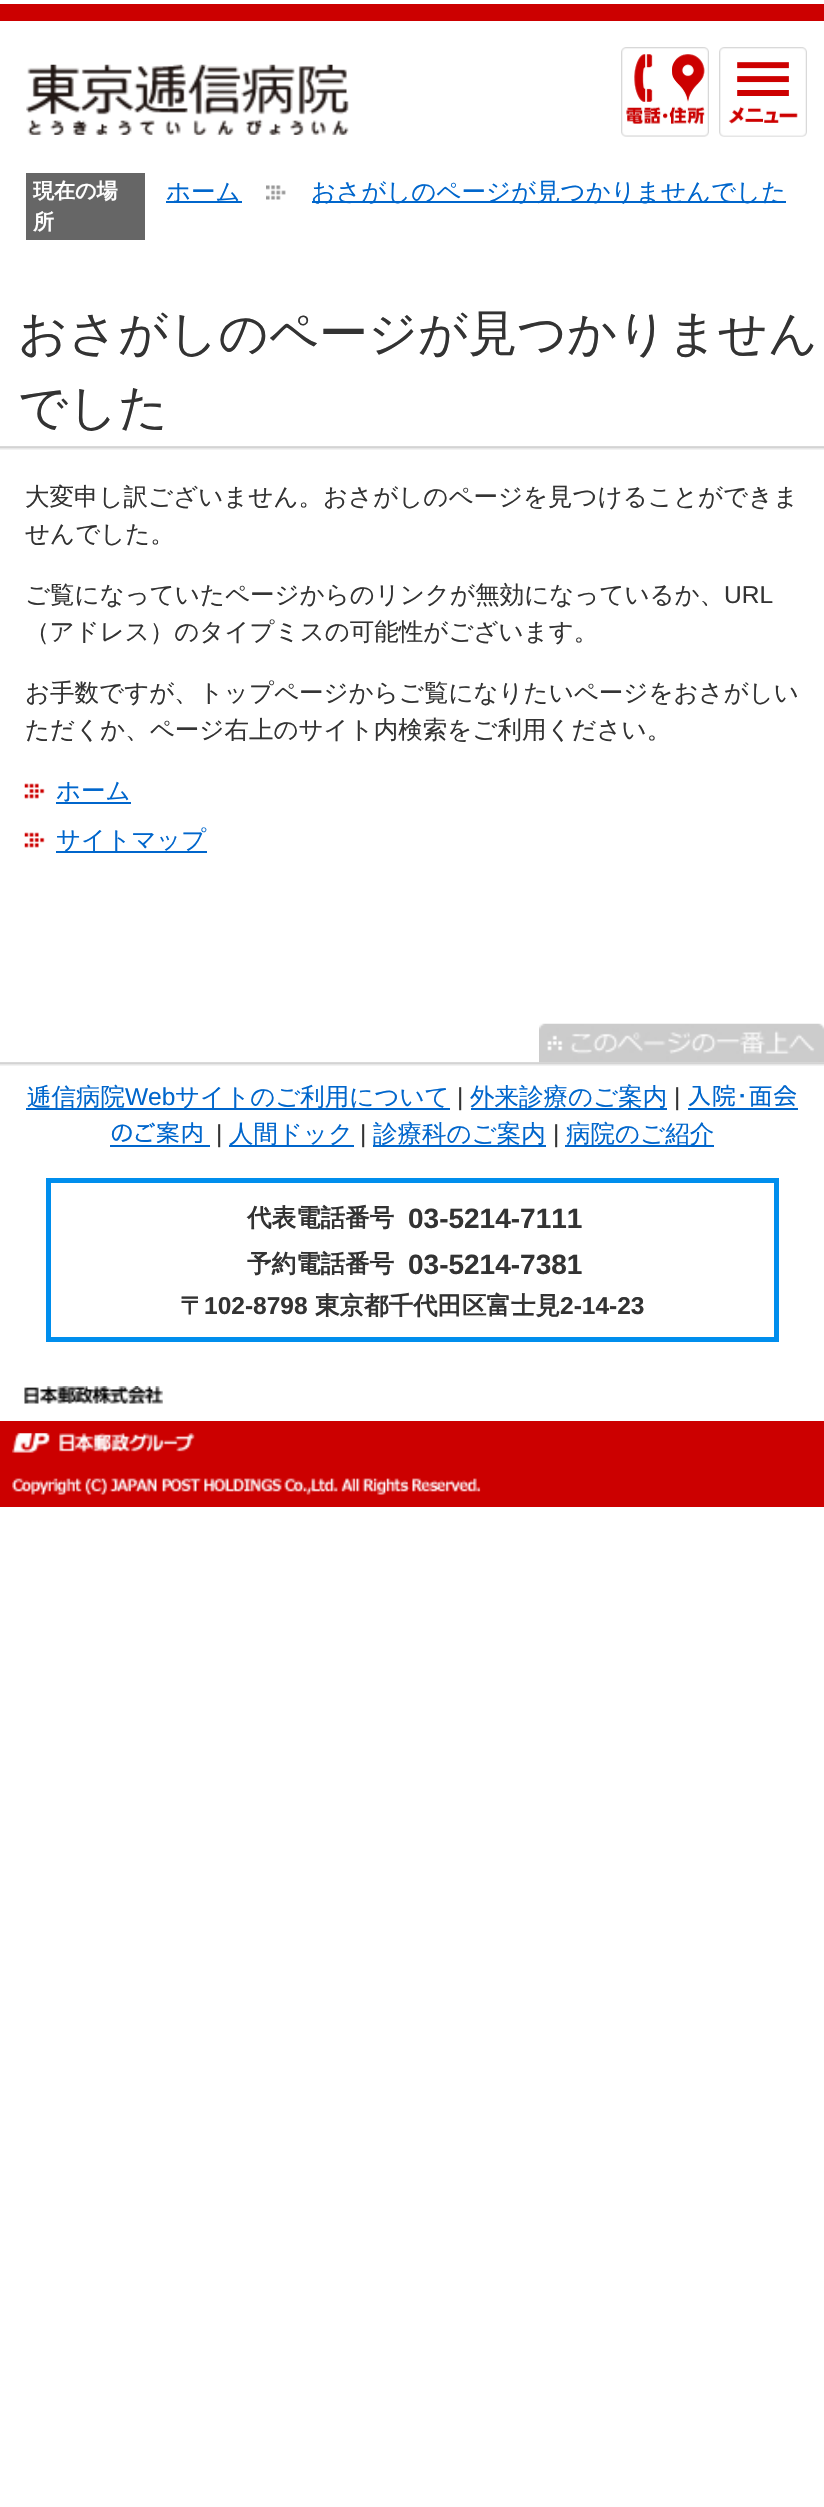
#include "include/core/SkBlurTypes.h"
#include "include/core/SkCanvas.h"
#include "include/core/SkData.h"
#include "include/core/SkFont.h"
#include "include/core/SkFontMgr.h"
#include "include/core/SkImage.h"
#include "include/core/SkMaskFilter.h"
#include "include/core/SkPaint.h"
#include "include/core/SkPathBuilder.h"
#include "include/core/SkTextBlob.h"
#include "include/effects/SkDashPathEffect.h"
#include "include/effects/SkGradientShader.h"
#include "include/utils/SkParsePath.h"

extern sk_sp<SkFontMgr> fontMgr;

static SkFont font(const char* family, int weight, float size, bool italic = false) {
    SkFontStyle style(weight, SkFontStyle::kNormal_Width,
        italic ? SkFontStyle::kItalic_Slant : SkFontStyle::kUpright_Slant);
    SkFont result(fontMgr->matchFamilyStyle(family, style), size);
    result.setSubpixel(true);
    return result;
}

static void drawLabel(SkCanvas* canvas, const char* s, float x, float y, const SkFont& font, SkColor color) {
    SkPaint ink(SkColor4f::FromColor(color));
    ink.setAntiAlias(true);
    canvas->drawString(s, x, y, font, ink);
}

static void fillRect(SkCanvas* canvas, float x, float y, float w, float h, SkColor color) {
    SkPaint ink(SkColor4f::FromColor(color));
    ink.setAntiAlias(true);
    canvas->drawRect(SkRect::MakeXYWH(x, y, w, h), ink);
}

static void drawPhoto(SkCanvas* canvas, const char* path, float x, float y, float w, float h) {
    auto image = SkImages::DeferredFromEncodedData(SkData::MakeFromFileName(path));
    canvas->drawImageRect(image, SkRect::MakeXYWH(x, y, w, h), SkSamplingOptions());
}

void draw(SkCanvas* canvas) {
    SkPaint paint;
    paint.setAntiAlias(true);
    canvas->clear(0xFFFFFFFF);
    fillRect(canvas, 0, 4, 824, 17, 0xFFCC0000);
    drawPhoto(canvas, "assets/img1.png", 26, 64, 323, 71);
    drawPhoto(canvas, "assets/img2.png", 621, 47, 88, 90);
    drawPhoto(canvas, "assets/img3.png", 719, 47, 88, 90);
    fillRect(canvas, 26, 173, 119, 67, 0xFF666666);
    SkFont font1 = font("WenQuanYi Zen Hei", 700, 21);
    drawLabel(canvas, "現在の場", 33, 198, font1, 0xFFFFFFFF);
    drawLabel(canvas, "所", 33, 229, font1, 0xFFFFFFFF);
    fillRect(canvas, 166, 201, 76, 2, 0xFF0066CC);
    SkFont font2 = font("WenQuanYi Zen Hei", 500, 24.5f);
    drawLabel(canvas, "ホーム", 166, 200, font2, 0xFF0066CC);
    drawPhoto(canvas, "assets/img4.png", 266, 185, 20, 15);
    fillRect(canvas, 312, 201, 474, 2, 0xFF0066CC);
    drawLabel(canvas, "おさがしのページが見つかりませんでした", 311, 200, font2, 0xFF0066CC);
    drawPhoto(canvas, "assets/img5.png", 0, 446, 824, 4);
    SkFont font3 = font("WenQuanYi Zen Hei", 500, 49);
    drawLabel(canvas, "おさがしのページが見つかりません", 18, 350, font3, 0xFF333333);
    drawLabel(canvas, "でした", 18, 424, font3, 0xFF333333);
    drawLabel(canvas, "大変申し訳ございません。おさがしのページを見つけることができま", 25, 505, font2, 0xFF333333);
    drawLabel(canvas, "せんでした。", 25, 542, font2, 0xFF333333);
    drawLabel(canvas, "ご覧になっていたページからのリンクが無効になっているか、", 25, 603, font2, 0xFF333333);
    SkFont font4 = font("Liberation Sans", 400, 24.5f);
    drawLabel(canvas, "URL", 724, 603, font4, 0xFF333333);
    drawLabel(canvas, "（アドレス）のタイプミスの可能性がございます。", 25, 640, font2, 0xFF333333);
    drawLabel(canvas, "お手数ですが、トップページからご覧になりたいページをおさがしい", 25, 701, font2, 0xFF333333);
    drawLabel(canvas, "ただくか、ページ右上のサイト内検索をご利用ください。", 25, 738, font2, 0xFF333333);
    drawPhoto(canvas, "assets/img6.png", 24, 783, 21, 16);
    drawLabel(canvas, "ホーム", 56, 799, font2, 0xFF0066CC);
    fillRect(canvas, 56, 802, 75, 2, 0xFF0066CC);
    drawPhoto(canvas, "assets/img6.png", 24, 832, 21, 16);
    fillRect(canvas, 56, 851, 151, 2, 0xFF0066CC);
    drawLabel(canvas, "サイトマップ", 56, 848, font2, 0xFF0066CC);
    drawPhoto(canvas, "assets/img7.png", 539, 1023, 285, 40);
    drawPhoto(canvas, "assets/img8.png", 0, 1062, 824, 4);
    fillRect(canvas, 26, 1108, 424, 2, 0xFF0066CC);
    drawLabel(canvas, "逓信病院", 27, 1105, font2, 0xFF0066CC);
    drawLabel(canvas, "Web", 125, 1105, font4, 0xFF0066CC);
    drawLabel(canvas, "サイトのご利用について", 175, 1105, font2, 0xFF0066CC);
    drawLabel(canvas, "|", 457, 1105, font4, 0xFF333333);
    fillRect(canvas, 471, 1108, 196, 2, 0xFF0066CC);
    drawLabel(canvas, "外来診療のご案内", 470, 1105, font2, 0xFF0066CC);
    drawLabel(canvas, "|", 674, 1105, font4, 0xFF333333);
    SkFont font5 = font("IPAPGothic", 400, 24.5f);
    drawLabel(canvas, "入院･面会", 687, 1105, font5, 0xFF0066CC);
    fillRect(canvas, 688, 1108, 110, 2, 0xFF0066CC);
    drawLabel(canvas, "のご案内", 110, 1142, font5, 0xFF0066CC);
    fillRect(canvas, 110, 1145, 100, 2, 0xFF0066CC);
    drawLabel(canvas, "|", 216, 1142, font4, 0xFF333333);
    fillRect(canvas, 229, 1145, 125, 2, 0xFF0066CC);
    drawLabel(canvas, "人間ドック", 229, 1142, font2, 0xFF0066CC);
    drawLabel(canvas, "|", 360, 1142, font4, 0xFF333333);
    fillRect(canvas, 373, 1145, 173, 2, 0xFF0066CC);
    drawLabel(canvas, "診療科のご案内", 373, 1142, font2, 0xFF0066CC);
    drawLabel(canvas, "|", 553, 1142, font4, 0xFF333333);
    fillRect(canvas, 565, 1145, 149, 2, 0xFF0066CC);
    drawLabel(canvas, "病院のご紹介", 566, 1142, font2, 0xFF0066CC);
    paint.setStroke(true);
    paint.setStrokeWidth(5);
    paint.setColor(0xFF008EED);
    canvas->drawRect(SkRect::MakeXYWH(48.5f, 1180.5f, 728, 159), paint);
    SkFont font6 = font("WenQuanYi Zen Hei", 700, 24.5f);
    drawLabel(canvas, "代表電話番号", 247, 1226, font6, 0xFF333333);
    SkFont font7 = font("Liberation Sans", 700, 28);
    drawLabel(canvas, "03-5214-7111", 408, 1228, font7, 0xFF333333);
    drawLabel(canvas, "予約電話番号", 247, 1272, font6, 0xFF333333);
    drawLabel(canvas, "03-5214-7381", 408, 1274, font7, 0xFF333333);
    drawLabel(canvas, "〒", 180, 1314, font6, 0xFF333333);
    SkFont font8 = font("Liberation Sans", 700, 24.5f);
    drawLabel(canvas, "102-8798", 204, 1314, font8, 0xFF333333);
    drawLabel(canvas, "東京都千代田区富士見", 315, 1314, font6, 0xFF333333);
    drawLabel(canvas, "2-14-23", 560, 1314, font8, 0xFF333333);
    drawPhoto(canvas, "assets/img9.png", 24, 1386, 139, 18);
    fillRect(canvas, 0, 1421, 824, 86, 0xFFCC0000);
    drawPhoto(canvas, "assets/img10.png", 12, 1433, 183, 20);
    drawPhoto(canvas, "assets/img11.png", 12, 1478, 469, 17);
}
